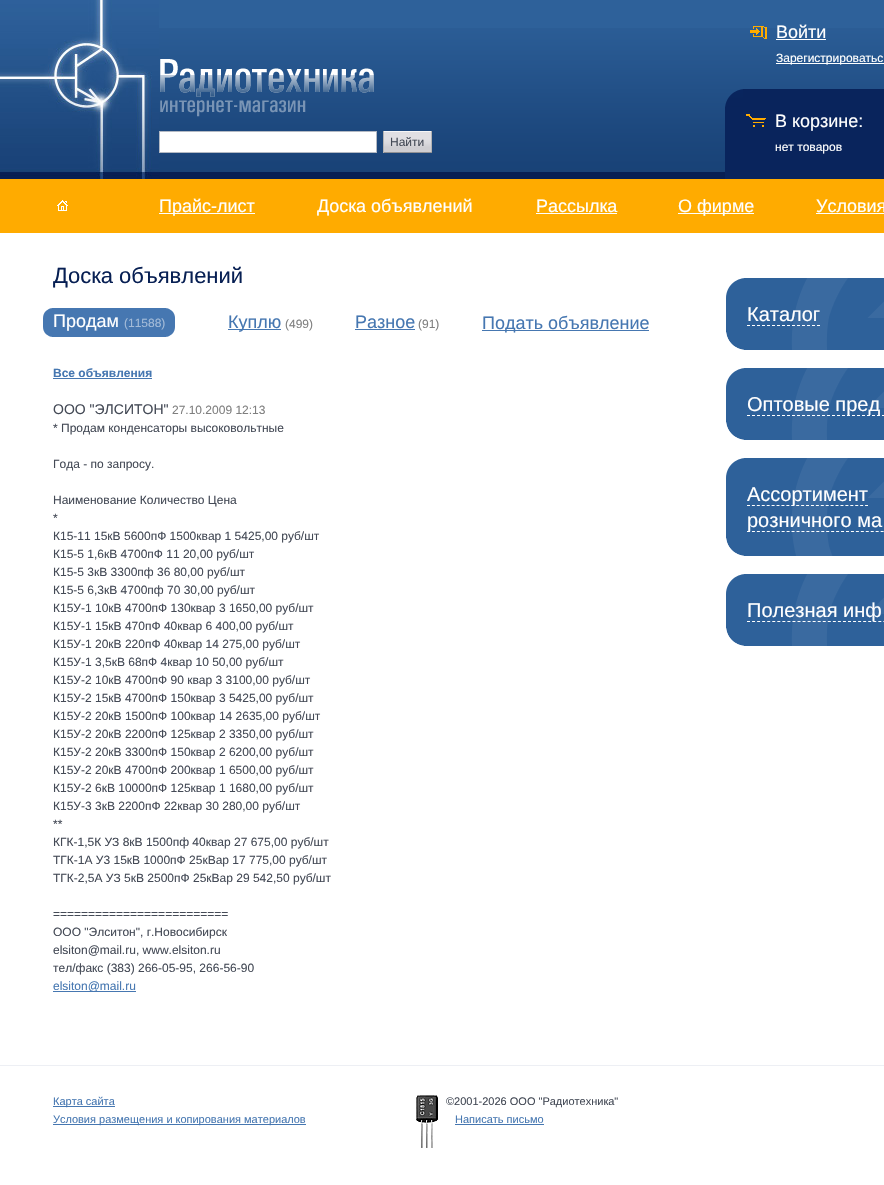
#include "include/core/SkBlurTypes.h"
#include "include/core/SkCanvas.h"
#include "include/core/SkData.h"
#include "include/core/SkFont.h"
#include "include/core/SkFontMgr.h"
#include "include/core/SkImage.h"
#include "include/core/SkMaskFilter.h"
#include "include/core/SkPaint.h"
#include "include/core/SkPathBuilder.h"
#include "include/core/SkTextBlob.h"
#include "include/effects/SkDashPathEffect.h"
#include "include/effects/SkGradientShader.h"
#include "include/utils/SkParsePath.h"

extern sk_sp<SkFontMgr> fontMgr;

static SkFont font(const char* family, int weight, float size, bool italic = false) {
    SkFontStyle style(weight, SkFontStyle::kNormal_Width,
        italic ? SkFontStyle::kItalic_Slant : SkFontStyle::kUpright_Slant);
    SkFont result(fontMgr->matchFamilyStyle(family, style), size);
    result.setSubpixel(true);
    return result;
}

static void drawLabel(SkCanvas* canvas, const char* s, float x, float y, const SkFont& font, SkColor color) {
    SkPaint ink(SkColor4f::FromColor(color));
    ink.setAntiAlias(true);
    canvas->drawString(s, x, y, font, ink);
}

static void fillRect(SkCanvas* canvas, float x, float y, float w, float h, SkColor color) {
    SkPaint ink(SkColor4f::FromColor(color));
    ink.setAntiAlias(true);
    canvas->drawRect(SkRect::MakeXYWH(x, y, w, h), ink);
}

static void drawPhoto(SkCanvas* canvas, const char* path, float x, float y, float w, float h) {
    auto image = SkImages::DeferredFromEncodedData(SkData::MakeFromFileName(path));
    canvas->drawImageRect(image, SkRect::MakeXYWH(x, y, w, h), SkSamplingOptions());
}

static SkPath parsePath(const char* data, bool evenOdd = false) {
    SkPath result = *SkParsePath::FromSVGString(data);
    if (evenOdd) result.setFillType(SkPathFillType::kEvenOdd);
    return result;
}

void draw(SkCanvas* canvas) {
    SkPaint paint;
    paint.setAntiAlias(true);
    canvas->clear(0xFFFFFFFF);
    fillRect(canvas, 159, 0, 725, 28, 0xFF2E619A);
    drawPhoto(canvas, "assets/img1.png", 159, 28, 725, 151);
    drawPhoto(canvas, "assets/img2.png", 0, 0, 159, 179);
    drawPhoto(canvas, "assets/img3.png", 750, 26, 17, 13);
    SkFont font1 = font("Liberation Sans", 400, 18);
    drawLabel(canvas, "Войти", 776, 38, font1, 0xFFFFFFFF);
    fillRect(canvas, 776, 39, 50, 1, 0xFFFFFFFF);
    fillRect(canvas, 776, 63, 108, 1, 0xFFFFFFFF);
    SkFont font2 = font("Liberation Sans", 400, 12);
    drawLabel(canvas, "Зарегистрироватьс", 776, 62, font2, 0xFFFFFFFF);
    drawPhoto(canvas, "assets/img4.png", 160, 59, 214, 58);
    paint.setColor(0xFFFFFFFF);
    canvas->drawRect(SkRect::MakeXYWH(159.5f, 131.5f, 217, 21), paint);
    paint.setStroke(true);
    paint.setStrokeWidth(1);
    paint.setColor(0xFFB3B9C3);
    canvas->drawRect(SkRect::MakeXYWH(159.5f, 131.5f, 217, 21), paint);
    drawPhoto(canvas, "assets/img5.png", 384, 132, 47, 20);
    fillRect(canvas, 383, 131, 49, 1, 0xFFF6F6F7);
    fillRect(canvas, 431, 131, 1, 22, 0xFFB3B3B3);
    fillRect(canvas, 383, 152, 49, 1, 0xFF919194);
    fillRect(canvas, 383, 131, 1, 22, 0xFFB3B3B3);
    drawLabel(canvas, "Найти", 390, 146, font2, 0xFF444A56);
    fillRect(canvas, 725, 89, 159, 90, 0xFF09245C);
    drawPhoto(canvas, "assets/img6.png", 725, 89, 18, 18);
    drawPhoto(canvas, "assets/img7.png", 746, 114, 20, 13);
    drawLabel(canvas, "В корзине:", 775, 127, font1, 0xFFFFFFFF);
    drawLabel(canvas, "нет товаров", 775, 151, font2, 0xFFFFFFFF);
    fillRect(canvas, 0, 179, 884, 54, 0xFFFFAB00);
    drawPhoto(canvas, "assets/img8.png", 57, 200, 11, 11);
    fillRect(canvas, 159, 213, 96, 1, 0xFFFFFFFF);
    drawLabel(canvas, "Прайс-лист", 159, 212, font1, 0xFFFFFFFF);
    drawLabel(canvas, "Доска объявлений", 317, 212, font1, 0xFFFFFFFF);
    drawLabel(canvas, "Рассылка", 536, 212, font1, 0xFFFFFFFF);
    fillRect(canvas, 536, 213, 81, 1, 0xFFFFFFFF);
    fillRect(canvas, 678, 213, 76, 1, 0xFFFFFFFF);
    drawLabel(canvas, "О фирме", 678, 212, font1, 0xFFFFFFFF);
    drawLabel(canvas, "Условия", 816, 212, font1, 0xFFFFFFFF);
    fillRect(canvas, 816, 213, 68, 1, 0xFFFFFFFF);
    SkFont font3 = font("Liberation Sans", 400, 22);
    drawLabel(canvas, "Доска объявлений", 53, 283, font3, 0xFF071F53);
    drawPhoto(canvas, "assets/img9.png", 43, 308, 10, 29);
    fillRect(canvas, 53, 308, 112, 29, 0xFF4677B1);
    drawLabel(canvas, "Продам", 53, 327, font1, 0xFFFFFFFF);
    drawLabel(canvas, "(11588)", 124, 327, font2, 0xFFA3BBD8);
    drawPhoto(canvas, "assets/img10.png", 165, 308, 10, 29);
    fillRect(canvas, 228, 329, 53, 1, 0xFF4677B1);
    drawLabel(canvas, "Куплю", 228, 328, font1, 0xFF4677B1);
    drawLabel(canvas, "(499)", 285, 328, font2, 0xFF7F7F7F);
    drawLabel(canvas, "Разное", 355, 328, font1, 0xFF4677B1);
    fillRect(canvas, 355, 329, 60, 1, 0xFF4677B1);
    drawLabel(canvas, "(91)", 418, 328, font2, 0xFF7F7F7F);
    fillRect(canvas, 482, 330, 167, 1, 0xFF4677B1);
    drawLabel(canvas, "Подать объявление", 482, 329, font1, 0xFF4677B1);
    SkFont font4 = font("Liberation Sans", 700, 12);
    drawLabel(canvas, "Все объявления", 53, 377, font4, 0xFF4677B1);
    fillRect(canvas, 53, 378, 99, 1, 0xFF4677B1);
    SkFont font5 = font("Liberation Sans", 400, 14);
    drawLabel(canvas, "ООО \"ЭЛСИТОН\"", 53, 414, font5, 0xFF444A56);
    drawLabel(canvas, "27.10.2009 12:13", 172, 414, font2, 0xFF7F7F7F);
    drawLabel(canvas, "* Продам конденсаторы высоковольтные", 53, 432, font2, 0xFF444A56);
    drawLabel(canvas, "Года - по запросу.", 53, 468, font2, 0xFF444A56);
    drawLabel(canvas, "Наименование Количество Цена", 53, 504, font2, 0xFF444A56);
    drawLabel(canvas, "*", 53, 522, font2, 0xFF444A56);
    drawLabel(canvas, "К15-11 15кВ 5600пФ 1500квар 1 5425,00 руб/шт", 53, 540, font2, 0xFF444A56);
    drawLabel(canvas, "К15-5 1,6кВ 4700пФ 11 20,00 руб/шт", 53, 558, font2, 0xFF444A56);
    drawLabel(canvas, "К15-5 3кВ 3300пф 36 80,00 руб/шт", 53, 576, font2, 0xFF444A56);
    drawLabel(canvas, "К15-5 6,3кВ 4700пф 70 30,00 руб/шт", 53, 594, font2, 0xFF444A56);
    drawLabel(canvas, "К15У-1 10кВ 4700пФ 130квар 3 1650,00 руб/шт", 53, 612, font2, 0xFF444A56);
    drawLabel(canvas, "К15У-1 15кВ 470пФ 40квар 6 400,00 руб/шт", 53, 630, font2, 0xFF444A56);
    drawLabel(canvas, "К15У-1 20кВ 220пФ 40квар 14 275,00 руб/шт", 53, 648, font2, 0xFF444A56);
    drawLabel(canvas, "К15У-1 3,5кВ 68пФ 4квар 10 50,00 руб/шт", 53, 666, font2, 0xFF444A56);
    drawLabel(canvas, "К15У-2 10кВ 4700пФ 90 квар 3 3100,00 руб/шт", 53, 684, font2, 0xFF444A56);
    drawLabel(canvas, "К15У-2 15кВ 4700пФ 150квар 3 5425,00 руб/шт", 53, 702, font2, 0xFF444A56);
    drawLabel(canvas, "К15У-2 20кВ 1500пФ 100квар 14 2635,00 руб/шт", 53, 720, font2, 0xFF444A56);
    drawLabel(canvas, "К15У-2 20кВ 2200пФ 125квар 2 3350,00 руб/шт", 53, 738, font2, 0xFF444A56);
    drawLabel(canvas, "К15У-2 20кВ 3300пФ 150квар 2 6200,00 руб/шт", 53, 756, font2, 0xFF444A56);
    drawLabel(canvas, "К15У-2 20кВ 4700пФ 200квар 1 6500,00 руб/шт", 53, 774, font2, 0xFF444A56);
    drawLabel(canvas, "К15У-2 6кВ 10000пФ 125квар 1 1680,00 руб/шт", 53, 792, font2, 0xFF444A56);
    drawLabel(canvas, "К15У-3 3кВ 2200пФ 22квар 30 280,00 руб/шт", 53, 810, font2, 0xFF444A56);
    drawLabel(canvas, "**", 53, 828, font2, 0xFF444A56);
    drawLabel(canvas, "КГК-1,5К УЗ 8кВ 1500пф 40квар 27 675,00 руб/шт", 53, 846, font2, 0xFF444A56);
    drawLabel(canvas, "ТГК-1А У3 15кВ 1000пФ 25кВар 17 775,00 руб/шт", 53, 864, font2, 0xFF444A56);
    drawLabel(canvas, "ТГК-2,5А УЗ 5кВ 2500пФ 25кВар 29 542,50 руб/шт", 53, 882, font2, 0xFF444A56);
    drawLabel(canvas, "=========================", 53, 918, font2, 0xFF444A56);
    drawLabel(canvas, "ООО \"Элситон\", г.Новосибирск", 53, 936, font2, 0xFF444A56);
    drawLabel(canvas, "elsiton@mail.ru, www.elsiton.ru", 53, 954, font2, 0xFF444A56);
    drawLabel(canvas, "тел/факс (383) 266-05-95, 266-56-90", 53, 972, font2, 0xFF444A56);
    fillRect(canvas, 53, 991, 83, 1, 0xFF4677B1);
    drawLabel(canvas, "elsiton@mail.ru", 53, 990, font2, 0xFF4677B1);
    drawPhoto(canvas, "assets/img11.png", 726, 278, 158, 72);
    drawPhoto(canvas, "assets/img12.png", 726, 332, 18, 18);
    SkFont font6 = font("Liberation Sans", 400, 20);
    drawLabel(canvas, "Каталог", 747, 321, font6, 0xFFFFFFFF);
    paint.setColor(0xFFFFFFFF);
    paint.setPathEffect(SkDashPathEffect::Make({{3, 2}}, 0));
    canvas->drawPath(parsePath("M747 325.5H820"), paint);
    paint.setPathEffect(nullptr);
    drawPhoto(canvas, "assets/img11.png", 726, 368, 158, 72);
    drawPhoto(canvas, "assets/img12.png", 726, 422, 18, 18);
    paint.setPathEffect(SkDashPathEffect::Make({{3, 2}}, 0));
    canvas->drawPath(parsePath("M747 415.5H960"), paint);
    paint.setPathEffect(nullptr);
    drawLabel(canvas, "Оптовые пред", 747, 411, font6, 0xFFFFFFFF);
    drawPhoto(canvas, "assets/img13.png", 726, 458, 158, 98);
    drawPhoto(canvas, "assets/img12.png", 726, 538, 18, 18);
    paint.setPathEffect(SkDashPathEffect::Make({{3, 1.92f}}, 0));
    canvas->drawPath(parsePath("M747 505.5H868"), paint);
    paint.setPathEffect(nullptr);
    drawLabel(canvas, "Ассортимент", 747, 501, font6, 0xFFFFFFFF);
    paint.setPathEffect(SkDashPathEffect::Make({{3, 1.95f}}, 0));
    canvas->drawPath(parsePath("M747 531.5H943"), paint);
    paint.setPathEffect(nullptr);
    drawLabel(canvas, "розничного ма", 747, 527, font6, 0xFFFFFFFF);
    drawPhoto(canvas, "assets/img11.png", 726, 574, 158, 72);
    drawPhoto(canvas, "assets/img12.png", 726, 628, 18, 18);
    paint.setPathEffect(SkDashPathEffect::Make({{3, 2.05f}}, 0));
    canvas->drawPath(parsePath("M747 621.5H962"), paint);
    paint.setPathEffect(nullptr);
    drawLabel(canvas, "Полезная инф", 747, 617, font6, 0xFFFFFFFF);
    fillRect(canvas, 0, 1065, 884, 1, 0xFFEDEFF4);
    fillRect(canvas, 53, 1106, 62, 1, 0xFF4677B1);
    SkFont font7 = font("Liberation Sans", 400, 11);
    drawLabel(canvas, "Карта сайта", 53, 1105, font7, 0xFF4677B1);
    fillRect(canvas, 53, 1124, 253, 1, 0xFF4677B1);
    drawLabel(canvas, "Условия размещения и копирования материалов", 53, 1123, font7, 0xFF4677B1);
    drawPhoto(canvas, "assets/img14.png", 416, 1095, 22, 53);
    drawLabel(canvas, "©2001-2026 ООО \"Радиотехника\"", 446, 1105, font7, 0xFF444A56);
    drawLabel(canvas, "Написать письмо", 455, 1123, font7, 0xFF4677B1);
    fillRect(canvas, 455, 1124, 89, 1, 0xFF4677B1);
}
